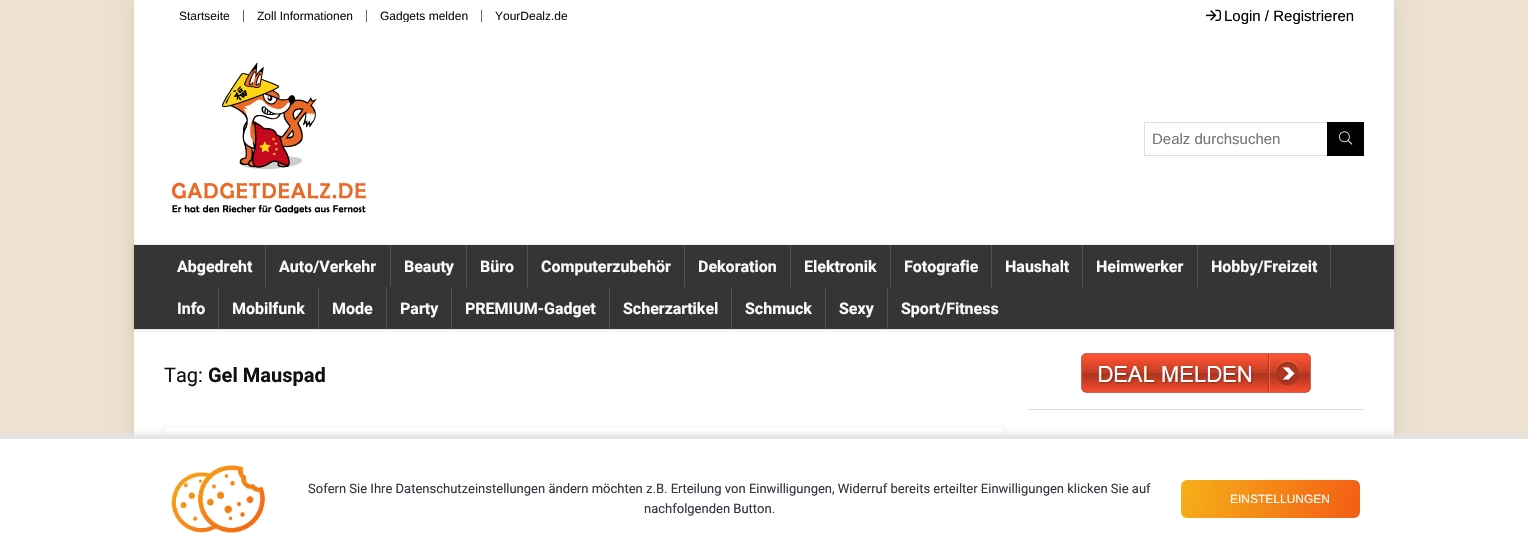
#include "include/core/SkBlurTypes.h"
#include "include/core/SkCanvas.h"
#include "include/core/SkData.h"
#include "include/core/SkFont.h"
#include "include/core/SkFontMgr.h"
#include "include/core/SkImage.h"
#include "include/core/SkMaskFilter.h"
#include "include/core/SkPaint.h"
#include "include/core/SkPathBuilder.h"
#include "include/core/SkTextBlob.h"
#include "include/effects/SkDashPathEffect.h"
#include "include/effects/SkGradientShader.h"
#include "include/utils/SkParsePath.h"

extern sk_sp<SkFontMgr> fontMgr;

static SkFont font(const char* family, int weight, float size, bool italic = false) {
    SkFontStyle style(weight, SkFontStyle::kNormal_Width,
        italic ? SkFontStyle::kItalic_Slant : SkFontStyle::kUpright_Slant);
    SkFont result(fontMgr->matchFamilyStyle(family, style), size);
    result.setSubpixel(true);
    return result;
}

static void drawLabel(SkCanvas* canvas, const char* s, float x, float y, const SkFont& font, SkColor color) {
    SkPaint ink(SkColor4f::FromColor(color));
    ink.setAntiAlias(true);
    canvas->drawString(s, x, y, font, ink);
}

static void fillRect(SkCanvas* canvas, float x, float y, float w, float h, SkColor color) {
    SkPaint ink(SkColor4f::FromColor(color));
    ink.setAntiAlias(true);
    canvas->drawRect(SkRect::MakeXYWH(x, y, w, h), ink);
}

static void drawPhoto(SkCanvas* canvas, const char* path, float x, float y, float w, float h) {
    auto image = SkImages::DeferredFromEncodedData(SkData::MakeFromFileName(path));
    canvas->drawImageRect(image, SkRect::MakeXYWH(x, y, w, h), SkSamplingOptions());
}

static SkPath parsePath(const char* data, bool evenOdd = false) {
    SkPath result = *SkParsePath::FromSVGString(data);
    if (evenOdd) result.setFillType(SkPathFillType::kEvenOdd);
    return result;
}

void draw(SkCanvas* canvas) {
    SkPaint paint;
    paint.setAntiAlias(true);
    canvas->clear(0xFFFFFFFF);
    drawPhoto(canvas, "assets/img1.png", 0, 0, 1528, 439);
    paint.setColor(0x1A000000);
    paint.setMaskFilter(SkMaskFilter::MakeBlur(kNormal_SkBlurStyle, 10));
    canvas->drawRect(SkRect::MakeXYWH(134, 0, 1260, 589), paint);
    paint.setMaskFilter(nullptr);
    fillRect(canvas, 134, 0, 1260, 439, 0xFFFFFFFF);
    SkFont font1 = font("Liberation Sans", 400, 12);
    drawLabel(canvas, "Startseite", 179, 20, font1, 0xFF111111);
    fillRect(canvas, 243, 10, 1, 12, 0xFF666666);
    drawLabel(canvas, "Zoll Informationen", 257, 20, font1, 0xFF111111);
    fillRect(canvas, 366, 10, 1, 12, 0xFF666666);
    canvas->save();
    canvas->clipRect(SkRect::MakeXYWH(179, 10, 402, 12));
    drawLabel(canvas, "Gadgets melden", 380, 20, font1, 0xFF111111);
    canvas->restore();
    fillRect(canvas, 481, 10, 1, 12, 0xFF666666);
    drawLabel(canvas, "YourDealz.de", 495, 20, font1, 0xFF111111);
    drawPhoto(canvas, "assets/img2.png", 1206, 9, 15, 12);
    SkFont font2 = font("Liberation Sans", 400, 15);
    drawLabel(canvas, "Login / Registrieren", 1224, 21, font2, 0xFF000000);
    drawPhoto(canvas, "assets/img3.png", 172, 62, 194, 152);
    paint.setStroke(true);
    paint.setStrokeWidth(1);
    paint.setColor(0xFFDDDDDD);
    canvas->drawRect(SkRect::MakeXYWH(1144.5f, 122.5f, 219, 33), paint);
    drawLabel(canvas, "Dealz durchsuchen", 1152, 144, font2, 0xFF757575);
    fillRect(canvas, 1327, 122, 37, 34, 0xFF000000);
    drawPhoto(canvas, "assets/img4.png", 1339, 131, 14, 14);
    paint.setColor(0x08000000);
    canvas->drawRect(SkRect::MakeXYWH(133.5f, 244.5f, 1261, 85), paint);
    paint.setStroke(false);
    paint.setColor(0x1A000000);
    paint.setMaskFilter(SkMaskFilter::MakeBlur(kNormal_SkBlurStyle, 2));
    canvas->drawRect(SkRect::MakeXYWH(134, 246, 1260, 84), paint);
    paint.setMaskFilter(nullptr);
    fillRect(canvas, 134, 245, 1260, 84, 0xFF353535);
    fillRect(canvas, 265, 245, 1, 42, 0xFF535353);
    SkFont font3 = font("Roboto", 700, 16);
    drawLabel(canvas, "Abgedreht", 177, 272, font3, 0xFFFBFBFB);
    fillRect(canvas, 390, 245, 1, 42, 0xFF535353);
    drawLabel(canvas, "Auto/Verkehr", 279, 272, font3, 0xFFFBFBFB);
    fillRect(canvas, 466, 245, 1, 42, 0xFF535353);
    drawLabel(canvas, "Beauty", 404, 272, font3, 0xFFFBFBFB);
    fillRect(canvas, 527, 245, 1, 42, 0xFF535353);
    drawLabel(canvas, "Büro", 480, 272, font3, 0xFFFBFBFB);
    fillRect(canvas, 684, 245, 1, 42, 0xFF535353);
    drawLabel(canvas, "Computerzubehör", 541, 272, font3, 0xFFFBFBFB);
    fillRect(canvas, 790, 245, 1, 42, 0xFF535353);
    drawLabel(canvas, "Dekoration", 698, 272, font3, 0xFFFBFBFB);
    fillRect(canvas, 890, 245, 1, 42, 0xFF535353);
    drawLabel(canvas, "Elektronik", 804, 272, font3, 0xFFFBFBFB);
    fillRect(canvas, 991, 245, 1, 42, 0xFF535353);
    drawLabel(canvas, "Fotografie", 904, 272, font3, 0xFFFBFBFB);
    fillRect(canvas, 1082, 245, 1, 42, 0xFF535353);
    drawLabel(canvas, "Haushalt", 1005, 272, font3, 0xFFFBFBFB);
    fillRect(canvas, 1197, 245, 1, 42, 0xFF535353);
    drawLabel(canvas, "Heimwerker", 1096, 272, font3, 0xFFFBFBFB);
    fillRect(canvas, 1330, 245, 1, 42, 0xFF535353);
    drawLabel(canvas, "Hobby/Freizeit", 1211, 272, font3, 0xFFFBFBFB);
    fillRect(canvas, 218, 287, 1, 42, 0xFF535353);
    drawLabel(canvas, "Info", 177, 314, font3, 0xFFFBFBFB);
    fillRect(canvas, 318, 287, 1, 42, 0xFF535353);
    drawLabel(canvas, "Mobilfunk", 232, 314, font3, 0xFFFBFBFB);
    fillRect(canvas, 386, 287, 1, 42, 0xFF535353);
    drawLabel(canvas, "Mode", 332, 314, font3, 0xFFFBFBFB);
    fillRect(canvas, 451, 287, 1, 42, 0xFF535353);
    drawLabel(canvas, "Party", 400, 314, font3, 0xFFFBFBFB);
    fillRect(canvas, 609, 287, 1, 42, 0xFF535353);
    drawLabel(canvas, "PREMIUM-Gadget", 465, 314, font3, 0xFFFBFBFB);
    fillRect(canvas, 731, 287, 1, 42, 0xFF535353);
    drawLabel(canvas, "Scherzartikel", 623, 314, font3, 0xFFFBFBFB);
    fillRect(canvas, 825, 287, 1, 42, 0xFF535353);
    drawLabel(canvas, "Schmuck", 745, 314, font3, 0xFFFBFBFB);
    fillRect(canvas, 887, 287, 1, 42, 0xFF535353);
    drawLabel(canvas, "Sexy", 839, 314, font3, 0xFFFBFBFB);
    drawLabel(canvas, "Sport/Fitness", 901, 314, font3, 0xFFFBFBFB);
    SkFont font4 = font("Roboto", 400, 20);
    drawLabel(canvas, "Tag:", 164, 382, font4, 0xFF111111);
    SkFont font5 = font("Roboto", 700, 20);
    drawLabel(canvas, "Gel Mauspad", 208, 382, font5, 0xFF111111);
    canvas->save();
    canvas->clipPath(parsePath("M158 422H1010V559H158ZM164 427H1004V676H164Z", true), true);
    paint.setColor(0x29000000);
    paint.setMaskFilter(SkMaskFilter::MakeBlur(kNormal_SkBlurStyle, 1.5f));
    canvas->drawRect(SkRect::MakeXYWH(164, 428, 840, 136), paint);
    paint.setMaskFilter(nullptr);
    canvas->restore();
    drawPhoto(canvas, "assets/img5.png", 1081, 353, 230, 40);
    fillRect(canvas, 1028, 409, 336, 1, 0xFFDDDDDD);
    paint.setColor(0xFFE4E4E4);
    paint.setMaskFilter(SkMaskFilter::MakeBlur(kNormal_SkBlurStyle, 2.5f));
    canvas->drawRect(SkRect::MakeXYWH(0, 434, 1528, 120), paint);
    paint.setMaskFilter(nullptr);
    fillRect(canvas, 0, 439, 1528, 120, 0xFFFFFFFF);
    drawPhoto(canvas, "assets/img6.png", 171, 465, 94, 68);
    SkFont font6 = font("Roboto", 400, 13);
    drawLabel(canvas, "Sofern Sie Ihre Datenschutzeinstellungen ändern möchten z.B. Erteilung von Einwilligungen, Widerruf bereits erteilter Einwilligungen klicken Sie auf", 308, 493, font6, 0xFF323640);
    drawLabel(canvas, "nachfolgenden Button.", 644, 513, font6, 0xFF323640);
    {
        const SkColor colors[] = {0xFFF6B019, 0xFFF35D14};
        const float stops[] = {0, 1};
        const SkPoint ends[] = {{1182, 477}, {1359, 521}};
        paint.setShader(SkGradientShader::MakeLinear(ends, colors, stops, 2, SkTileMode::kClamp));
        paint.setAlpha(255);
    }
    canvas->drawRoundRect(SkRect::MakeXYWH(1181, 480, 179, 38), 6, 6, paint);
    drawLabel(canvas, "EINSTELLUNGEN", 1230, 503, font1, 0xFFFBFBFB);
}
